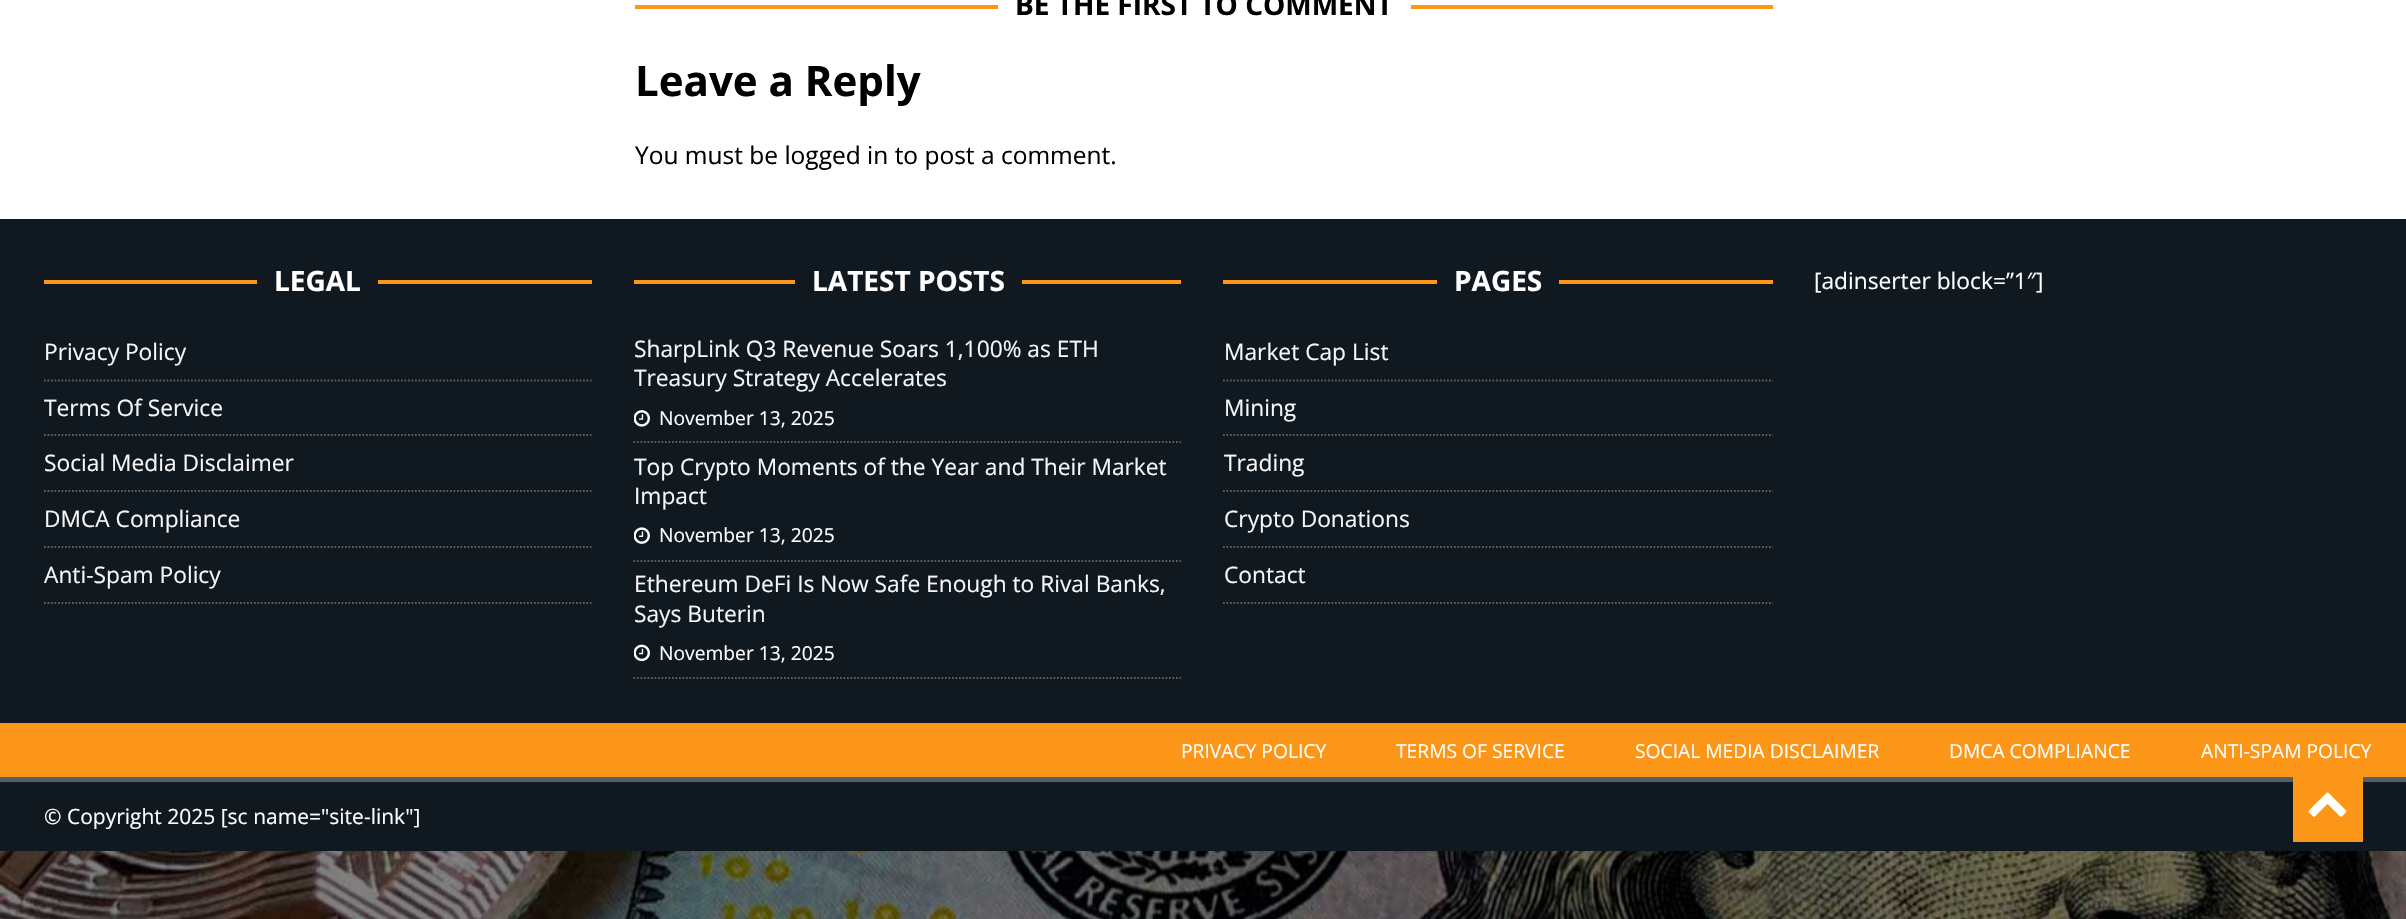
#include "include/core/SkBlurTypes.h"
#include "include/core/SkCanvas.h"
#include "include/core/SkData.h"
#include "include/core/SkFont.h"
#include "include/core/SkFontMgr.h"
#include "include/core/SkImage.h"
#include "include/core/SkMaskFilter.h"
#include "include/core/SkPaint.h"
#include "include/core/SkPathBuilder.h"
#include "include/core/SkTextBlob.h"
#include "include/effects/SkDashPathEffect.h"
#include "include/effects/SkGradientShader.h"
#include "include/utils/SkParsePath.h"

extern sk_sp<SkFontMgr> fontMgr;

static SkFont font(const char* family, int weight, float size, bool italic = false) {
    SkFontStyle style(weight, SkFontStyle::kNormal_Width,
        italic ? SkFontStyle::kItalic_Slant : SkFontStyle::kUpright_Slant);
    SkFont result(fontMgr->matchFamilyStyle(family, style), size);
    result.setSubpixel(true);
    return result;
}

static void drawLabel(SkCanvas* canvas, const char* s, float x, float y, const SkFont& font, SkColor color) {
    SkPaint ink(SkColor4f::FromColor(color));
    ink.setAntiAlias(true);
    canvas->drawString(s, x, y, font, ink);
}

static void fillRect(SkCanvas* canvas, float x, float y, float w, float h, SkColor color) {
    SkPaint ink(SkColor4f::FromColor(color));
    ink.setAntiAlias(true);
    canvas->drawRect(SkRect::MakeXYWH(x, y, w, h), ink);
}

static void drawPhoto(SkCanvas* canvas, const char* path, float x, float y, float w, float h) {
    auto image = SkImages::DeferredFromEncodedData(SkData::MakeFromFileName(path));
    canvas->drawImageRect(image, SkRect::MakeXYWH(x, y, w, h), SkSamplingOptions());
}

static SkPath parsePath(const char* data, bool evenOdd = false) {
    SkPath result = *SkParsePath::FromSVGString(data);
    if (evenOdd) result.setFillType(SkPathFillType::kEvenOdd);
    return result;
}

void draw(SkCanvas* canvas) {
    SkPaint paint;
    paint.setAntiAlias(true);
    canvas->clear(0xFFFFFFFF);
    drawPhoto(canvas, "assets/img1.png", 0, 851, 2406, 68);
    fillRect(canvas, 635, 5, 1138, 4, 0xFFFC9618);
    fillRect(canvas, 998, 5, 413, 4, 0xFFFFFFFF);
    SkFont font1 = font("Open Sans", 700, 28);
    drawLabel(canvas, "BE THE FIRST TO COMMENT", 1015, 15, font1, 0xFF000000);
    SkFont font2 = font("Open Sans", 700, 42);
    drawLabel(canvas, "Leave a Reply", 635, 96, font2, 0xFF000000);
    SkFont font3 = font("Open Sans", 400, 24.5f);
    drawLabel(canvas, "You must be logged in to post a comment.", 635, 164, font3, 0xFF000000);
    fillRect(canvas, 0, 782, 2406, 69, 0xFF101820);
    fillRect(canvas, 0, 777, 2406, 5, 0xFF585D63);
    fillRect(canvas, 2293, 777, 70, 65, 0xFFFC9618);
    drawPhoto(canvas, "assets/img2.png", 2308, 792, 39, 25);
    fillRect(canvas, 0, 219, 2406, 504, 0xFF101820);
    fillRect(canvas, 44, 280, 548, 4, 0xFFFC9618);
    fillRect(canvas, 257, 280, 121, 4, 0xFF101820);
    drawLabel(canvas, "LEGAL", 274, 291, font1, 0xFFFFFFFF);
    paint.setStroke(true);
    paint.setStrokeWidth(1.8f);
    paint.setColor(0xFF585D63);
    paint.setPathEffect(SkDashPathEffect::Make({{1.75f, 1.75f}}, 0));
    canvas->drawPath(parsePath("M44 380.5H591.5"), paint);
    paint.setPathEffect(nullptr);
    SkFont font4 = font("Open Sans", 400, 22.75f);
    drawLabel(canvas, "Privacy Policy", 44, 360, font4, 0xFFF7F7F7);
    paint.setPathEffect(SkDashPathEffect::Make({{1.75f, 1.75f}}, 0));
    canvas->drawPath(parsePath("M44 435H591.5"), paint);
    paint.setPathEffect(nullptr);
    drawLabel(canvas, "Terms Of Service", 44, 416, font4, 0xFFF7F7F7);
    paint.setPathEffect(SkDashPathEffect::Make({{1.75f, 1.75f}}, 0));
    canvas->drawPath(parsePath("M44 491H591.5"), paint);
    paint.setPathEffect(nullptr);
    drawLabel(canvas, "Social Media Disclaimer", 44, 471, font4, 0xFFF7F7F7);
    paint.setPathEffect(SkDashPathEffect::Make({{1.75f, 1.75f}}, 0));
    canvas->drawPath(parsePath("M44 547H591.5"), paint);
    paint.setPathEffect(nullptr);
    drawLabel(canvas, "DMCA Compliance", 44, 527, font4, 0xFFF7F7F7);
    paint.setPathEffect(SkDashPathEffect::Make({{1.75f, 1.75f}}, 0));
    canvas->drawPath(parsePath("M44 603H591.5"), paint);
    paint.setPathEffect(nullptr);
    drawLabel(canvas, "Anti-Spam Policy", 44, 583, font4, 0xFFF7F7F7);
    fillRect(canvas, 634, 280, 547, 4, 0xFFFC9618);
    fillRect(canvas, 795, 280, 227, 4, 0xFF101820);
    drawLabel(canvas, "LATEST POSTS", 812, 291, font1, 0xFFFFFFFF);
    paint.setPathEffect(SkDashPathEffect::Make({{1.75f, 1.75f}}, 0));
    canvas->drawPath(parsePath("M633.5 442H1181"), paint);
    paint.setPathEffect(nullptr);
    drawLabel(canvas, "SharpLink Q3 Revenue Soars 1,100% as ETH", 634, 357, font4, 0xFFF7F7F7);
    drawLabel(canvas, "Treasury Strategy Accelerates", 634, 386, font4, 0xFFF7F7F7);
    drawPhoto(canvas, "assets/img3.png", 634, 410, 16, 17);
    SkFont font5 = font("Open Sans", 400, 19.25f);
    drawLabel(canvas, "November 13, 2025", 659, 425, font5, 0xFFFFFFFF);
    paint.setPathEffect(SkDashPathEffect::Make({{1.75f, 1.75f}}, 0));
    canvas->drawPath(parsePath("M633.5 561H1181"), paint);
    paint.setPathEffect(nullptr);
    drawLabel(canvas, "Top Crypto Moments of the Year and Their Market", 634, 475, font4, 0xFFF7F7F7);
    drawLabel(canvas, "Impact", 634, 504, font4, 0xFFF7F7F7);
    drawPhoto(canvas, "assets/img4.png", 634, 527, 16, 17);
    drawLabel(canvas, "November 13, 2025", 659, 542, font5, 0xFFFFFFFF);
    paint.setPathEffect(SkDashPathEffect::Make({{1.75f, 1.75f}}, 0));
    canvas->drawPath(parsePath("M633.5 678H1181"), paint);
    paint.setPathEffect(nullptr);
    drawLabel(canvas, "Ethereum DeFi Is Now Safe Enough to Rival Banks,", 634, 592, font4, 0xFFF7F7F7);
    drawLabel(canvas, "Says Buterin", 634, 622, font4, 0xFFF7F7F7);
    drawPhoto(canvas, "assets/img5.png", 634, 644, 16, 18);
    drawLabel(canvas, "November 13, 2025", 659, 660, font5, 0xFFFFFFFF);
    fillRect(canvas, 1223, 280, 550, 4, 0xFFFC9618);
    fillRect(canvas, 1437, 280, 122, 4, 0xFF101820);
    drawLabel(canvas, "PAGES", 1454, 291, font1, 0xFFFFFFFF);
    paint.setPathEffect(SkDashPathEffect::Make({{1.75f, 1.75f}}, 0));
    canvas->drawPath(parsePath("M1223 380.5H1773"), paint);
    paint.setPathEffect(nullptr);
    drawLabel(canvas, "Market Cap List", 1224, 360, font4, 0xFFF7F7F7);
    paint.setPathEffect(SkDashPathEffect::Make({{1.75f, 1.75f}}, 0));
    canvas->drawPath(parsePath("M1223 435H1773"), paint);
    paint.setPathEffect(nullptr);
    drawLabel(canvas, "Mining", 1224, 416, font4, 0xFFF7F7F7);
    paint.setPathEffect(SkDashPathEffect::Make({{1.75f, 1.75f}}, 0));
    canvas->drawPath(parsePath("M1223 491H1773"), paint);
    paint.setPathEffect(nullptr);
    drawLabel(canvas, "Trading", 1224, 471, font4, 0xFFF7F7F7);
    paint.setPathEffect(SkDashPathEffect::Make({{1.75f, 1.75f}}, 0));
    canvas->drawPath(parsePath("M1223 547H1773"), paint);
    paint.setPathEffect(nullptr);
    drawLabel(canvas, "Crypto Donations", 1224, 527, font4, 0xFFF7F7F7);
    paint.setPathEffect(SkDashPathEffect::Make({{1.75f, 1.75f}}, 0));
    canvas->drawPath(parsePath("M1223 603H1773"), paint);
    paint.setPathEffect(nullptr);
    drawLabel(canvas, "Contact", 1224, 583, font4, 0xFFF7F7F7);
    drawLabel(canvas, "[adinserter block=”1″]", 1814, 289, font4, 0xFFFFFFFF);
    fillRect(canvas, 0, 723, 2406, 54, 0xFFFC9618);
    drawLabel(canvas, "PRIVACY POLICY", 1181, 758, font5, 0xFFFFFFFF);
    drawLabel(canvas, "TERMS OF SERVICE", 1396, 758, font5, 0xFFFFFFFF);
    drawLabel(canvas, "SOCIAL MEDIA DISCLAIMER", 1635, 758, font5, 0xFFFFFFFF);
    drawLabel(canvas, "DMCA COMPLIANCE", 1949, 758, font5, 0xFFFFFFFF);
    drawLabel(canvas, "ANTI-SPAM POLICY", 2201, 758, font5, 0xFFFFFFFF);
    SkFont font6 = font("Open Sans", 400, 21);
    drawLabel(canvas, "© Copyright 2025 [sc name=\"site-link\"]", 44, 824, font6, 0xFFFFFFFF);
}
